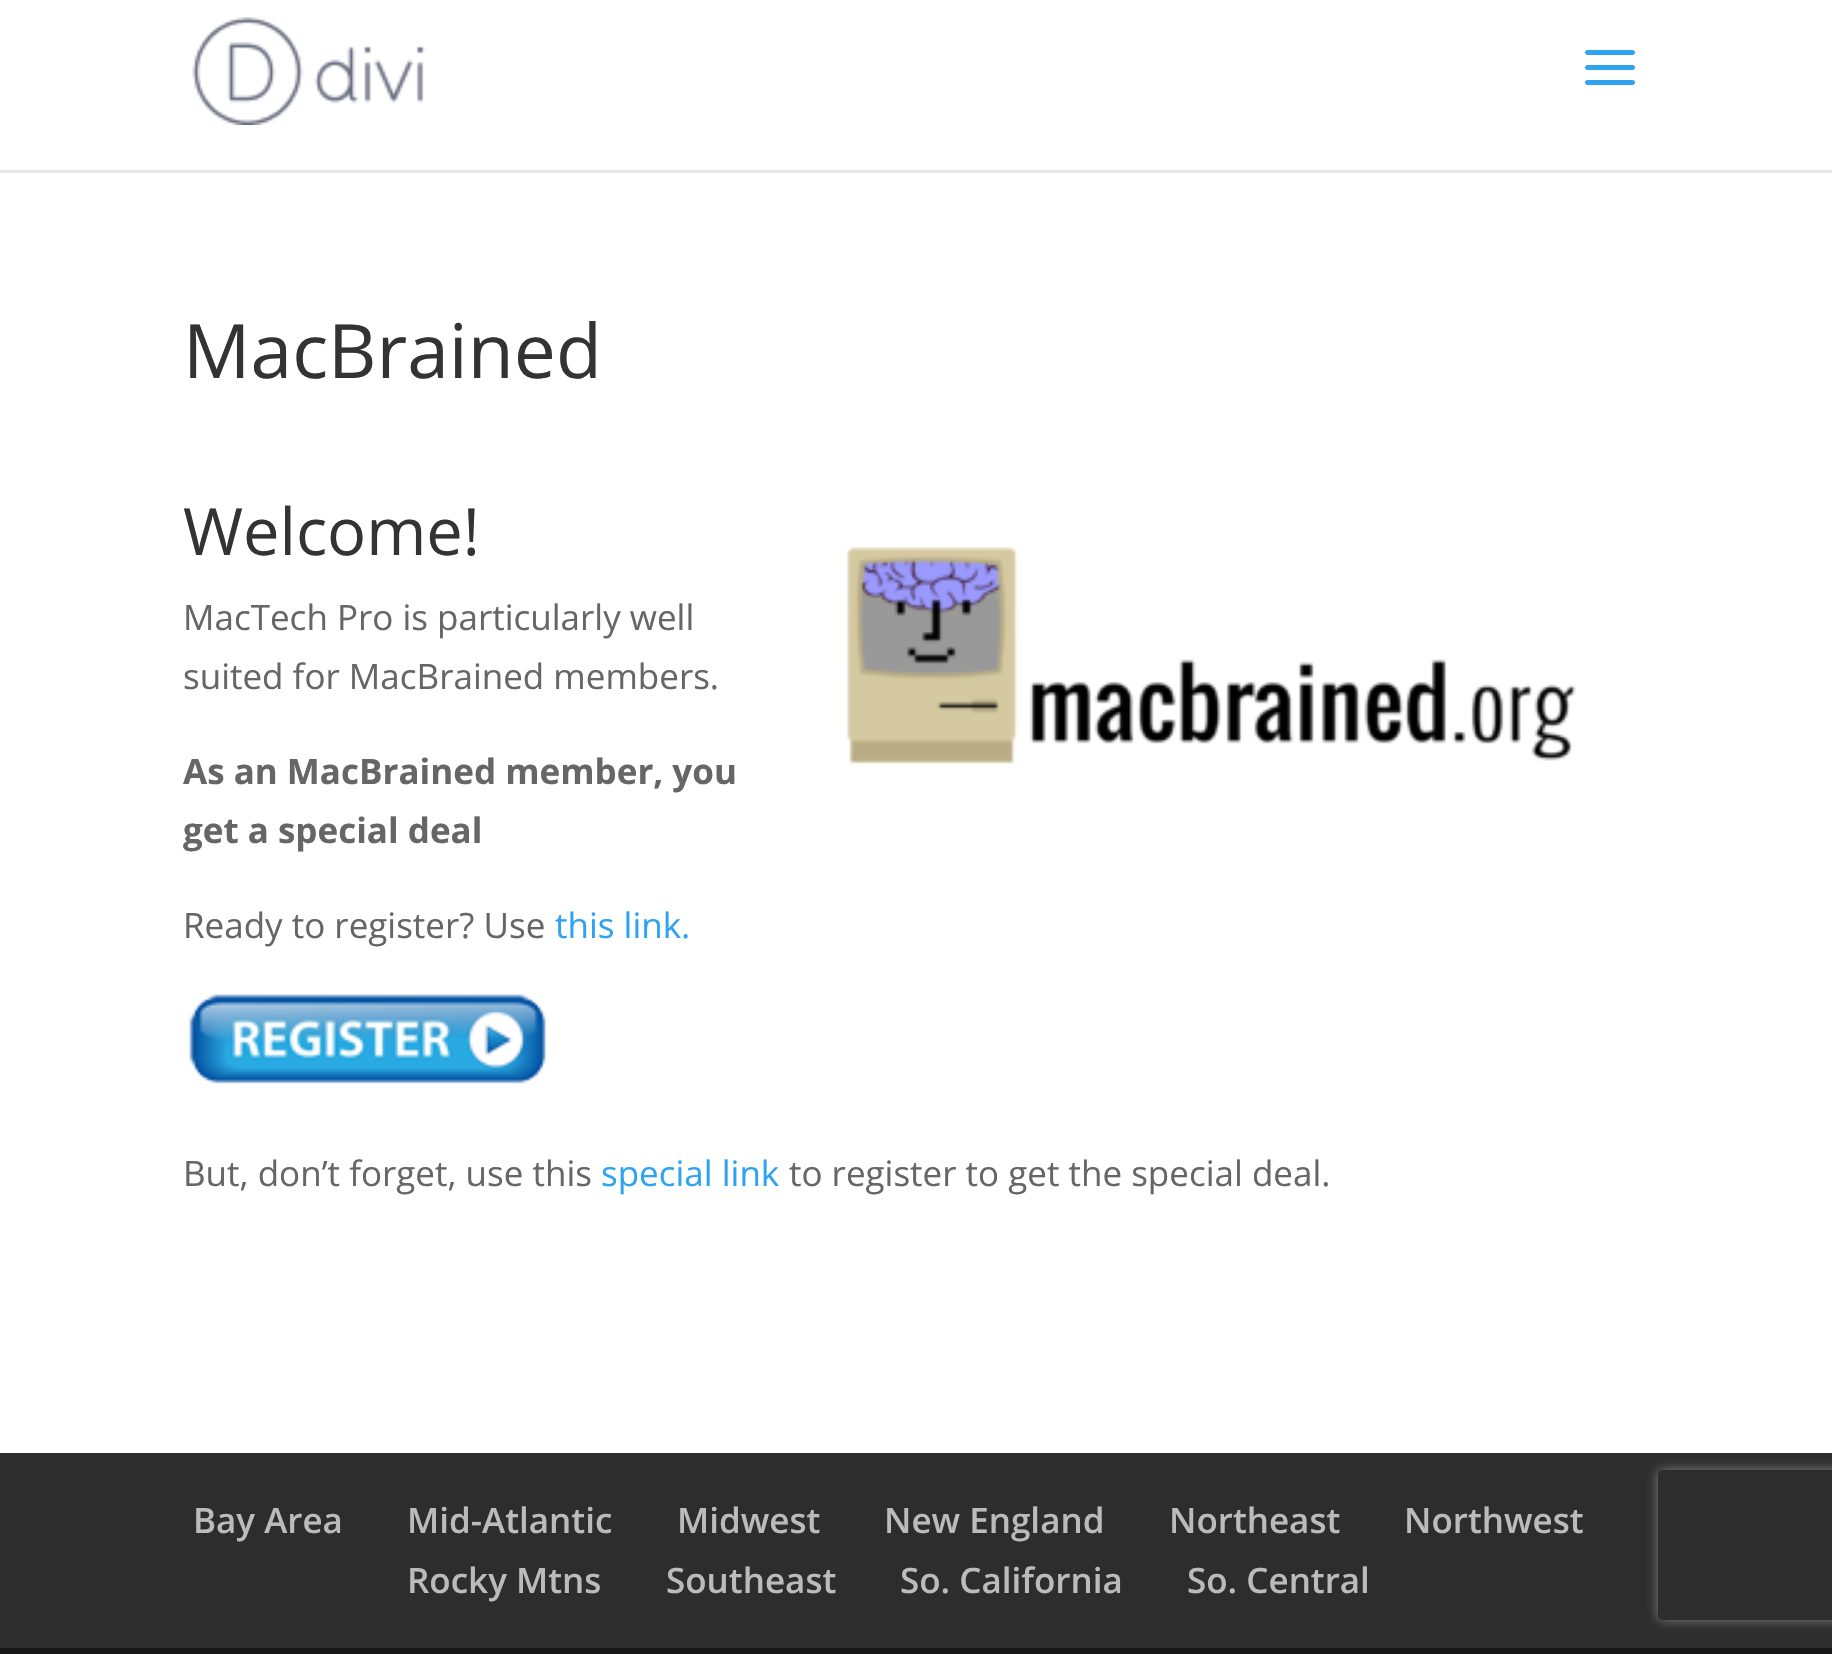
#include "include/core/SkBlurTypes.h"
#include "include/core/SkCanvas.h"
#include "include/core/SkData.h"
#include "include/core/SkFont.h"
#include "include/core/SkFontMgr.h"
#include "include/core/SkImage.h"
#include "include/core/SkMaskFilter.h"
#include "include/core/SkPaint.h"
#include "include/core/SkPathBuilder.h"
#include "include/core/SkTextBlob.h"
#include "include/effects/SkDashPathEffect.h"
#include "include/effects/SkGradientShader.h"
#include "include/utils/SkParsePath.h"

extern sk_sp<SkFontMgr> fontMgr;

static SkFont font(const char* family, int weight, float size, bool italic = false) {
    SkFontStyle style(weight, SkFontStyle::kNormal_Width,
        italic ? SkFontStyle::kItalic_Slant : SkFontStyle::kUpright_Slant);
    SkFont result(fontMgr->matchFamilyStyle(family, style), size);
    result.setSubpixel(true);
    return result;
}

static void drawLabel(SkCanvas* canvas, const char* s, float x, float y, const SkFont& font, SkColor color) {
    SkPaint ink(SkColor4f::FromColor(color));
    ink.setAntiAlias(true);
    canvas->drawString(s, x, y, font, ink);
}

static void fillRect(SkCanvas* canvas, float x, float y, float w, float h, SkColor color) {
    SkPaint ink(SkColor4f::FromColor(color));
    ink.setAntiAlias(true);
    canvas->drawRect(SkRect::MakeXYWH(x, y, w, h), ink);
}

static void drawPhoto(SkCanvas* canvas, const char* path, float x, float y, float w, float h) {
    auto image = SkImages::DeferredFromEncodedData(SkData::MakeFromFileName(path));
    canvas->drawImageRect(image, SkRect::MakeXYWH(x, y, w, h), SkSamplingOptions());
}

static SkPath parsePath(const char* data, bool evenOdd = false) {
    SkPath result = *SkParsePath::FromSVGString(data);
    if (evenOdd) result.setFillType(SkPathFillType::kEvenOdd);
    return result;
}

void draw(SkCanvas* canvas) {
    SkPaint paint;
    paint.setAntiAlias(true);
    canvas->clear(0xFFFFFFFF);
    paint.setColor(0xFFE6E6E6);
    canvas->drawPath(parsePath("M0 170V173H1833V-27H1832V170Z"), paint);
    drawPhoto(canvas, "assets/img1.png", 192, 17, 233, 108);
    drawPhoto(canvas, "assets/img2.png", 1585, 50, 50, 35);
    SkFont font1 = font("Open Sans", 400, 75);
    drawLabel(canvas, "MacBrained", 183, 378, font1, 0xFF333333);
    SkFont font2 = font("Open Sans", 400, 65);
    drawLabel(canvas, "Welcome!", 183, 555, font2, 0xFF333333);
    SkFont font3 = font("Open Sans", 400, 35);
    drawLabel(canvas, "MacTech Pro is particularly well", 183, 630, font3, 0xFF666666);
    drawLabel(canvas, "suited for MacBrained members.", 183, 689, font3, 0xFF666666);
    drawPhoto(canvas, "assets/img3.png", 846, 546, 730, 219);
    SkFont font4 = font("Open Sans", 700, 35);
    drawLabel(canvas, "As an MacBrained member, you", 183, 784, font4, 0xFF666666);
    drawLabel(canvas, "get a special deal", 183, 843, font4, 0xFF666666);
    drawLabel(canvas, "Ready to register? Use", 183, 938, font3, 0xFF666666);
    drawLabel(canvas, "this link.", 555, 938, font3, 0xFF2EA3F2);
    drawPhoto(canvas, "assets/img4.png", 189, 994, 357, 90);
    drawLabel(canvas, "But, don’t forget, use this", 183, 1186, font3, 0xFF666666);
    drawLabel(canvas, "special link", 601, 1186, font3, 0xFF2EA3F2);
    drawLabel(canvas, "to register to get the special deal.", 789, 1186, font3, 0xFF666666);
    fillRect(canvas, 0, 1453, 1832, 195, 0xFF2D2D2D);
    SkFont font5 = font("Open Sans", 600, 35);
    drawLabel(canvas, "Bay Area", 193, 1533, font5, 0xFFBBBBBB);
    drawLabel(canvas, "Mid-Atlantic", 407, 1533, font5, 0xFFBBBBBB);
    drawLabel(canvas, "Midwest", 677, 1533, font5, 0xFFBBBBBB);
    drawLabel(canvas, "New England", 884, 1533, font5, 0xFFBBBBBB);
    drawLabel(canvas, "Northeast", 1169, 1533, font5, 0xFFBBBBBB);
    drawLabel(canvas, "Northwest", 1404, 1533, font5, 0xFFBBBBBB);
    drawLabel(canvas, "Rocky Mtns", 407, 1593, font5, 0xFFBBBBBB);
    drawLabel(canvas, "Southeast", 666, 1593, font5, 0xFFBBBBBB);
    drawLabel(canvas, "So. California", 900, 1593, font5, 0xFFBBBBBB);
    drawLabel(canvas, "So. Central", 1187, 1593, font5, 0xFFBBBBBB);
    fillRect(canvas, 0, 1648, 1832, 6, 0xFF171717);
    canvas->save();
    canvas->clipPath(parsePath("M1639 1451H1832V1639H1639ZM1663 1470H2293C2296 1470 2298 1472 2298 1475V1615C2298 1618 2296 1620 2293 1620H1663C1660 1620 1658 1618 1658 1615V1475C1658 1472 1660 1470 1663 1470Z", true), true);
    paint.setColor(0xFF808080);
    paint.setMaskFilter(SkMaskFilter::MakeBlur(kNormal_SkBlurStyle, 6));
    canvas->drawRoundRect(SkRect::MakeXYWH(1658, 1470, 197, 150), 5, 5, paint);
    paint.setMaskFilter(nullptr);
    canvas->restore();
}
